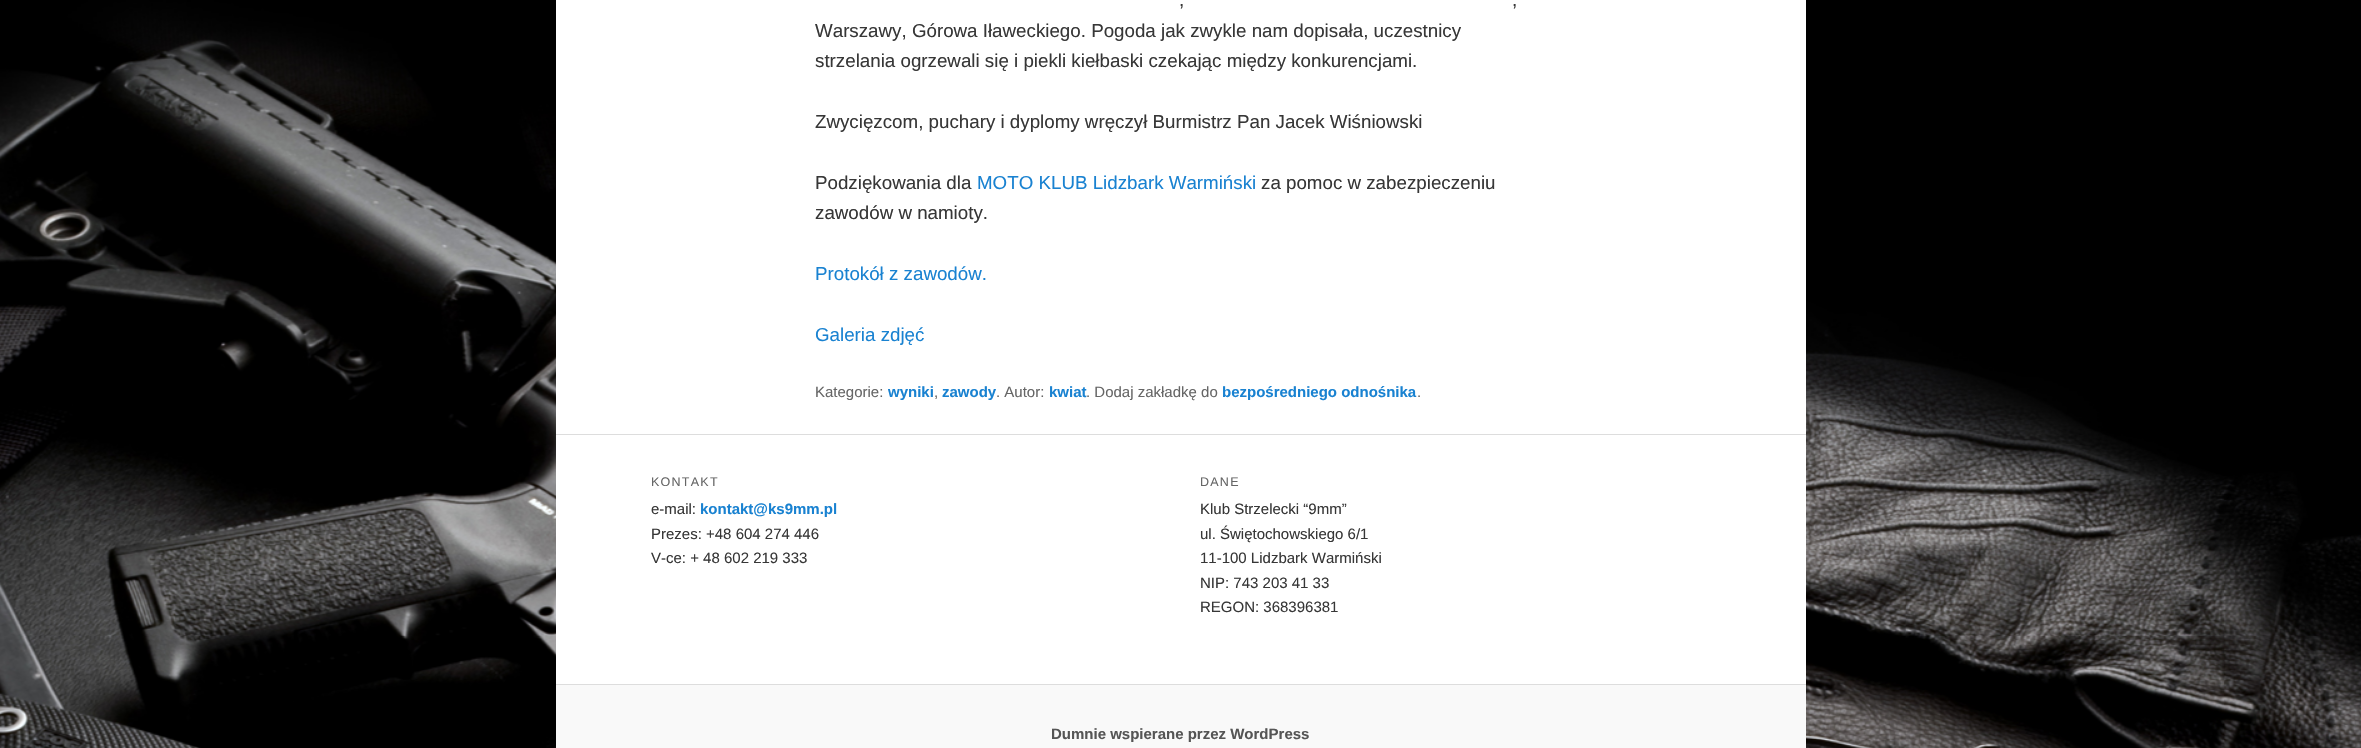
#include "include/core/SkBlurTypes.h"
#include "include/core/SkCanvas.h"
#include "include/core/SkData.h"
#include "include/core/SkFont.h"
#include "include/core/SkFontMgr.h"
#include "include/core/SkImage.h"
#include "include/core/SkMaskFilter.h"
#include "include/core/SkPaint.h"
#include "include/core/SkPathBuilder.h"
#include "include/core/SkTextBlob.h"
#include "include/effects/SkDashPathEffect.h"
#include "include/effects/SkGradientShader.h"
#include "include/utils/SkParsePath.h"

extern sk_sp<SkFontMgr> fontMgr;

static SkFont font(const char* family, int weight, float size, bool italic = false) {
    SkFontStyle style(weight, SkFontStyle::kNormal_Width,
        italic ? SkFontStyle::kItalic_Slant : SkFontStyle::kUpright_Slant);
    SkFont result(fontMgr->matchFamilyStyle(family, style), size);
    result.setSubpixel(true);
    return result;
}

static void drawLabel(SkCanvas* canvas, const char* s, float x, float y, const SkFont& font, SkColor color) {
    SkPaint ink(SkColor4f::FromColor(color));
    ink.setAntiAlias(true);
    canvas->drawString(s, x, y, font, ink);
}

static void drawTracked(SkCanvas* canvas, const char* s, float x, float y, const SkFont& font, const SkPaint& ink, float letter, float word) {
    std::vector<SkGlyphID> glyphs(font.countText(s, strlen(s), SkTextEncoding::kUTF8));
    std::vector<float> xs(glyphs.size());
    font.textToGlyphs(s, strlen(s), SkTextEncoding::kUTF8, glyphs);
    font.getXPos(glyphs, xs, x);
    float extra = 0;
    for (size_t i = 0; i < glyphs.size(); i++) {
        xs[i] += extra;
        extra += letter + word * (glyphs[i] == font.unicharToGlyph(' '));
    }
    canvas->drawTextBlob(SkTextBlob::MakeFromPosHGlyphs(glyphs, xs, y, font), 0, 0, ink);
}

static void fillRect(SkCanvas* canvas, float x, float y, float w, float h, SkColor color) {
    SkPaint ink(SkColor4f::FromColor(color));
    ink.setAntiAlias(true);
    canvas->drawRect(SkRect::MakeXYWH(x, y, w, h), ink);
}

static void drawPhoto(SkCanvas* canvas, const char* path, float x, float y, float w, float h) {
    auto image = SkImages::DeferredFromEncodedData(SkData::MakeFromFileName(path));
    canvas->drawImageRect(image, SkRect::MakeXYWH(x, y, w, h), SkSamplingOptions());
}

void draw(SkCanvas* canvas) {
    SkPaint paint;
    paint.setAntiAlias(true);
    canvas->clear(0xFFFFFFFF);
    drawPhoto(canvas, "assets/img1.png", 0, 0, 2361, 748);
    fillRect(canvas, 556, 0, 1250, 684, 0xFFFFFFFF);
    SkFont font1 = font("Liberation Sans", 400, 18.75f);
    drawLabel(canvas, ",", 1179, 6, font1, 0xFF373737);
    drawLabel(canvas, ",", 1512, 6, font1, 0xFF373737);
    drawLabel(canvas, "Warszawy, Górowa Iławeckiego. Pogoda jak zwykle nam dopisała, uczestnicy", 815, 37, font1, 0xFF373737);
    drawLabel(canvas, "strzelania ogrzewali się i piekli kiełbaski czekając między konkurencjami.", 815, 67, font1, 0xFF373737);
    drawLabel(canvas, "Zwycięzcom, puchary i dyplomy wręczył Burmistrz Pan Jacek Wiśniowski", 815, 128, font1, 0xFF373737);
    drawLabel(canvas, "Podziękowania dla", 815, 189, font1, 0xFF373737);
    drawLabel(canvas, "MOTO KLUB Lidzbark Warmiński", 977, 189, font1, 0xFF1982D1);
    drawLabel(canvas, "za pomoc w zabezpieczeniu", 1261, 189, font1, 0xFF373737);
    drawLabel(canvas, "zawodów w namioty.", 815, 219, font1, 0xFF373737);
    drawLabel(canvas, "Protokół z zawodów.", 815, 280, font1, 0xFF1982D1);
    drawLabel(canvas, "Galeria zdjęć", 815, 341, font1, 0xFF1982D1);
    SkFont font2 = font("Liberation Sans", 400, 15);
    drawLabel(canvas, "Kategorie:", 815, 397, font2, 0xFF666666);
    SkFont font3 = font("Liberation Sans", 700, 15);
    drawLabel(canvas, "wyniki", 888, 397, font3, 0xFF1982D1);
    drawLabel(canvas, ",", 934, 397, font2, 0xFF666666);
    drawLabel(canvas, "zawody", 942, 397, font3, 0xFF1982D1);
    drawLabel(canvas, ". Autor:", 996, 397, font2, 0xFF666666);
    drawLabel(canvas, "kwiat", 1049, 397, font3, 0xFF1982D1);
    drawLabel(canvas, ". Dodaj zakładkę do", 1086, 397, font2, 0xFF666666);
    drawLabel(canvas, "bezpośredniego odnośnika", 1222, 397, font3, 0xFF1982D1);
    drawLabel(canvas, ".", 1417, 397, font2, 0xFF666666);
    fillRect(canvas, 556, 434, 1250, 1, 0xFFDDDDDD);
    SkFont font4 = font("Liberation Sans", 400, 12.5f);
    paint.setColor(0xFF666666);
    drawTracked(canvas, "KONTAKT", 651, 486, font4, paint, 1.25f, 0);
    drawLabel(canvas, "e-mail:", 651, 514, font2, 0xFF373737);
    drawLabel(canvas, "kontakt@ks9mm.pl", 700, 514, font3, 0xFF1982D1);
    drawLabel(canvas, "Prezes: +48 604 274 446", 651, 539, font2, 0xFF373737);
    drawLabel(canvas, "V-ce: + 48 602 219 333", 651, 563, font2, 0xFF373737);
    drawTracked(canvas, "DANE", 1200, 486, font4, paint, 1.25f, 0);
    drawLabel(canvas, "Klub Strzelecki “9mm”", 1200, 514, font2, 0xFF373737);
    drawLabel(canvas, "ul. Świętochowskiego 6/1", 1200, 539, font2, 0xFF373737);
    drawLabel(canvas, "11-100 Lidzbark Warmiński", 1200, 563, font2, 0xFF373737);
    drawLabel(canvas, "NIP: 743 203 41 33", 1200, 588, font2, 0xFF373737);
    drawLabel(canvas, "REGON: 368396381", 1200, 612, font2, 0xFF373737);
    fillRect(canvas, 556, 685, 1250, 63, 0xFFF9F9F9);
    fillRect(canvas, 556, 684, 1250, 1, 0xFFDDDDDD);
    drawLabel(canvas, "Dumnie wspierane przez WordPress", 1051, 739, font3, 0xFF555555);
}
